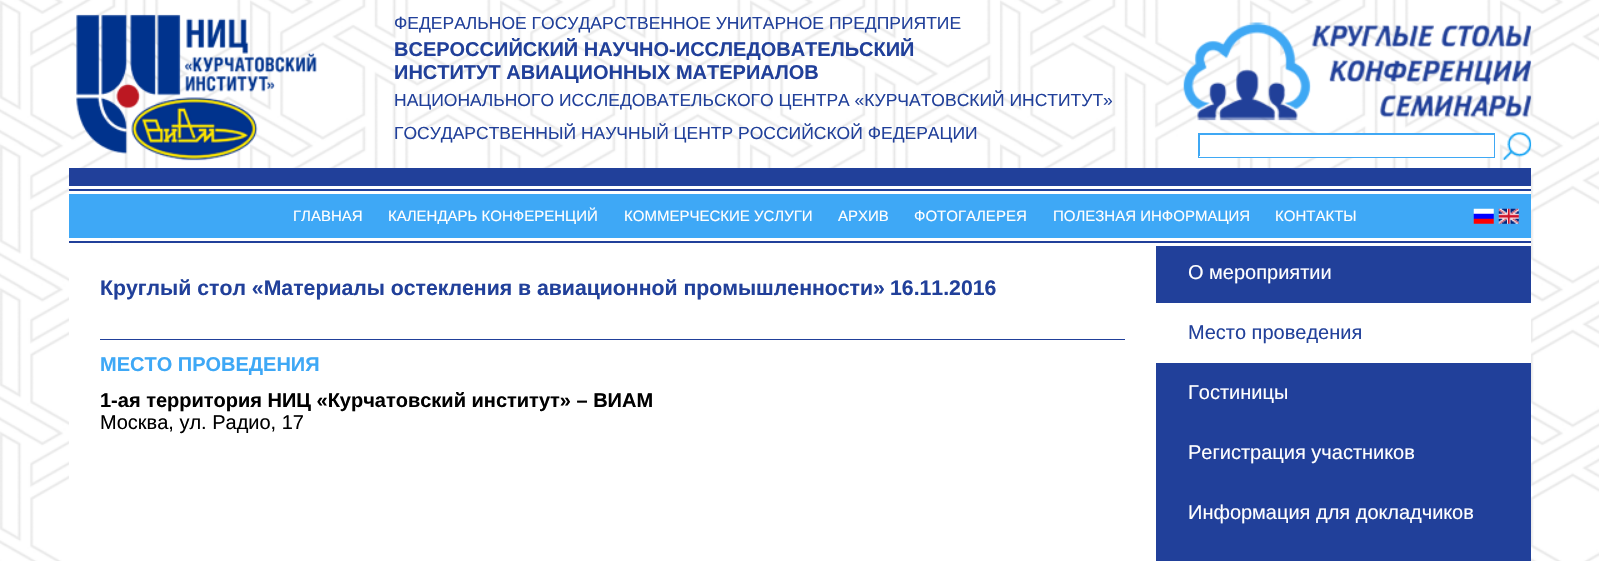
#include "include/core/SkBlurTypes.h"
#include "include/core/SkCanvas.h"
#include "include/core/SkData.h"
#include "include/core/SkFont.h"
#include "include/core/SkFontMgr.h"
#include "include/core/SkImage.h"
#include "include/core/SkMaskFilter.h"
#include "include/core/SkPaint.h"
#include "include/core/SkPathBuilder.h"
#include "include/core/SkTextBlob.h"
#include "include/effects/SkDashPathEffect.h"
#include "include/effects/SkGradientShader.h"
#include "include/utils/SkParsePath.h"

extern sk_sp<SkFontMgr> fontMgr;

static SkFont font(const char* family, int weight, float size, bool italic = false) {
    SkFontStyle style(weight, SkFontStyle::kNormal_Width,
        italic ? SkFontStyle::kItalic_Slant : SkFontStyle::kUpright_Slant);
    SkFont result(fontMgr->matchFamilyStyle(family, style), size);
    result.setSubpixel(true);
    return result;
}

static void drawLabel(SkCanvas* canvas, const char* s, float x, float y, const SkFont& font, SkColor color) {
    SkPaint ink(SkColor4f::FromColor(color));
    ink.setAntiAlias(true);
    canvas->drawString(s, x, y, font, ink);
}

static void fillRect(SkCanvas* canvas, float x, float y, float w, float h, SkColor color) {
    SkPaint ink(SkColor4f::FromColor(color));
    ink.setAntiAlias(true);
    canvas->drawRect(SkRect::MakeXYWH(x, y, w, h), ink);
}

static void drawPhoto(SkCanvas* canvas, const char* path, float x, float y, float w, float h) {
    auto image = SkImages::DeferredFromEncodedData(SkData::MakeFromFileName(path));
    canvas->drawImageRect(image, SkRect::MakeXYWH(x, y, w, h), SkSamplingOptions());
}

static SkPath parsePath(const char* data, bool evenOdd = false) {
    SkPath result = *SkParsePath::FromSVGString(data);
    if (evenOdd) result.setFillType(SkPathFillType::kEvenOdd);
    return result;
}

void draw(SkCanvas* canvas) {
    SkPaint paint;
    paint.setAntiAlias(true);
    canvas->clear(0xFFFFFFFF);
    drawPhoto(canvas, "assets/img1.png", 0, 0, 1599, 561);
    drawPhoto(canvas, "assets/img2.png", 76, 14, 241, 147);
    SkFont font1 = font("Liberation Sans", 400, 17.5f);
    drawLabel(canvas, "ФЕДЕРАЛЬНОЕ ГОСУДАРСТВЕННОЕ УНИТАРНОЕ ПРЕДПРИЯТИЕ", 394, 29, font1, 0xFF21409A);
    SkFont font2 = font("Liberation Sans", 700, 20);
    drawLabel(canvas, "ВСЕРОССИЙСКИЙ НАУЧНО-ИССЛЕДОВАТЕЛЬСКИЙ", 394, 56, font2, 0xFF21409A);
    drawLabel(canvas, "ИНСТИТУТ АВИАЦИОННЫХ МАТЕРИАЛОВ", 394, 79, font2, 0xFF21409A);
    drawLabel(canvas, "НАЦИОНАЛЬНОГО ИССЛЕДОВАТЕЛЬСКОГО ЦЕНТРА «КУРЧАТОВСКИЙ ИНСТИТУТ»", 394, 106, font1, 0xFF21409A);
    drawLabel(canvas, "ГОСУДАРСТВЕННЫЙ НАУЧНЫЙ ЦЕНТР РОССИЙСКОЙ ФЕДЕРАЦИИ", 394, 139, font1, 0xFF21409A);
    drawPhoto(canvas, "assets/img3.png", 1183, 22, 349, 99);
    fillRect(canvas, 1228, 135, 263, 22, 0xFFFFFFFF);
    canvas->save();
    canvas->clipRect(SkRect::MakeXYWH(1199, 134, 295, 22));
    paint.setColor(0xFF3FA8F4);
    canvas->drawPath(parsePath("M1075 10H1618V280H1075ZM1200 135H1495V158H1200Z", true), paint);
    canvas->restore();
    paint.setStroke(true);
    paint.setStrokeWidth(1);
    canvas->drawRect(SkRect::MakeXYWH(1198.5f, 133.5f, 296, 24), paint);
    drawPhoto(canvas, "assets/img4.png", 1502, 132, 30, 28);
    fillRect(canvas, 69, 168, 1462, 18, 0xFF21409A);
    fillRect(canvas, 69, 194, 1462, 44, 0xFF3EA8F6);
    fillRect(canvas, 69, 189, 1462, 2, 0xFF21409A);
    fillRect(canvas, 69, 186, 1462, 3, 0xFFFFFFFF);
    fillRect(canvas, 69, 191, 1462, 3, 0xFFFFFFFF);
    SkFont font3 = font("Liberation Sans", 400, 15);
    drawLabel(canvas, "ГЛАВНАЯ", 293, 221, font3, 0xFFFFFFFF);
    drawLabel(canvas, "КАЛЕНДАРЬ КОНФЕРЕНЦИЙ", 388, 221, font3, 0xFFFFFFFF);
    drawLabel(canvas, "КОММЕРЧЕСКИЕ УСЛУГИ", 624, 221, font3, 0xFFFFFFFF);
    drawLabel(canvas, "АРХИВ", 838, 221, font3, 0xFFFFFFFF);
    drawLabel(canvas, "ФОТОГАЛЕРЕЯ", 914, 221, font3, 0xFFFFFFFF);
    drawLabel(canvas, "ПОЛЕЗНАЯ ИНФОРМАЦИЯ", 1053, 221, font3, 0xFFFFFFFF);
    drawLabel(canvas, "КОНТАКТЫ", 1275, 221, font3, 0xFFFFFFFF);
    drawPhoto(canvas, "assets/img5.png", 1473, 208, 21, 16);
    drawPhoto(canvas, "assets/img6.png", 1498, 208, 21, 16);
    fillRect(canvas, 69, 241, 1462, 2, 0xFF21409A);
    fillRect(canvas, 112, 238, 1419, 3, 0xFFFFFFFF);
    fillRect(canvas, 112, 243, 1419, 3, 0xFFFFFFFF);
    fillRect(canvas, 69, 246, 1087, 315, 0xFFFFFFFF);
    fillRect(canvas, 100, 339, 1025, 1, 0xFF21409A);
    SkFont font4 = font("Liberation Sans", 700, 21.25f);
    drawLabel(canvas, "Круглый стол «Материалы остекления в авиационной промышленности»", 100, 295, font4, 0xFF21409A);
    drawLabel(canvas, "16.11.2016", 890, 295, font4, 0xFF21409A);
    drawLabel(canvas, "МЕСТО ПРОВЕДЕНИЯ", 100, 371, font2, 0xFF3EA8F6);
    drawLabel(canvas, "1-ая территория НИЦ «Курчатовский институт» – ВИАМ", 100, 407, font2, 0xFF000000);
    SkFont font5 = font("Liberation Sans", 400, 20);
    drawLabel(canvas, "Москва, ул. Радио, 17", 100, 429, font5, 0xFF000000);
    fillRect(canvas, 1156, 246, 375, 315, 0xFF21409A);
    drawLabel(canvas, "О мероприятии", 1188, 279, font5, 0xFFFFFFFF);
    fillRect(canvas, 1156, 303, 375, 60, 0xFFFFFFFF);
    drawLabel(canvas, "Место проведения", 1188, 339, font5, 0xFF21409A);
    drawLabel(canvas, "Гостиницы", 1188, 399, font5, 0xFFFFFFFF);
    drawLabel(canvas, "Регистрация участников", 1188, 459, font5, 0xFFFFFFFF);
    drawLabel(canvas, "Информация для докладчиков", 1188, 519, font5, 0xFFFFFFFF);
}
